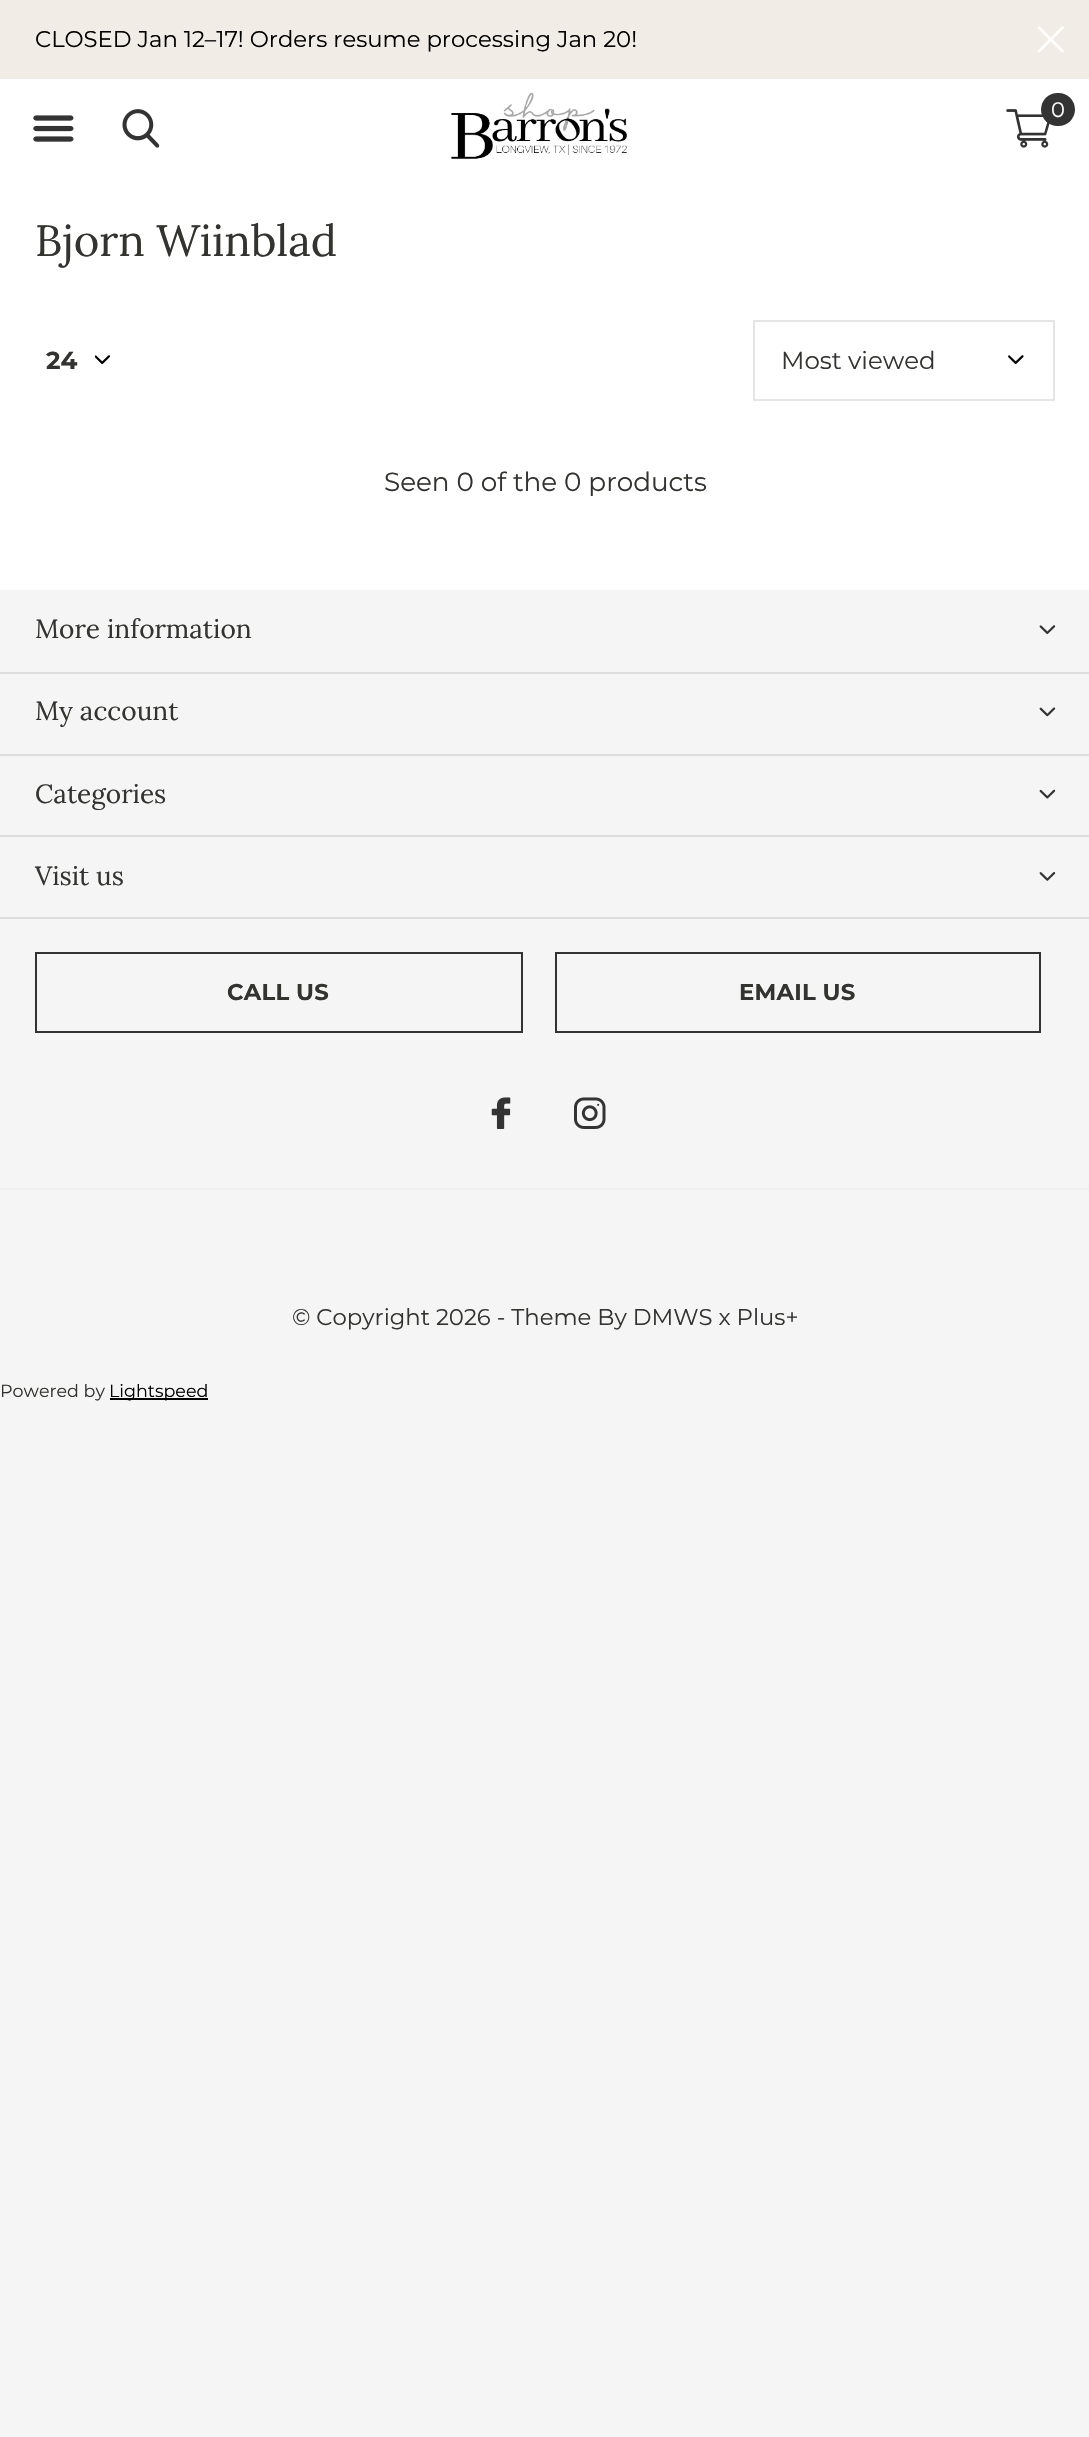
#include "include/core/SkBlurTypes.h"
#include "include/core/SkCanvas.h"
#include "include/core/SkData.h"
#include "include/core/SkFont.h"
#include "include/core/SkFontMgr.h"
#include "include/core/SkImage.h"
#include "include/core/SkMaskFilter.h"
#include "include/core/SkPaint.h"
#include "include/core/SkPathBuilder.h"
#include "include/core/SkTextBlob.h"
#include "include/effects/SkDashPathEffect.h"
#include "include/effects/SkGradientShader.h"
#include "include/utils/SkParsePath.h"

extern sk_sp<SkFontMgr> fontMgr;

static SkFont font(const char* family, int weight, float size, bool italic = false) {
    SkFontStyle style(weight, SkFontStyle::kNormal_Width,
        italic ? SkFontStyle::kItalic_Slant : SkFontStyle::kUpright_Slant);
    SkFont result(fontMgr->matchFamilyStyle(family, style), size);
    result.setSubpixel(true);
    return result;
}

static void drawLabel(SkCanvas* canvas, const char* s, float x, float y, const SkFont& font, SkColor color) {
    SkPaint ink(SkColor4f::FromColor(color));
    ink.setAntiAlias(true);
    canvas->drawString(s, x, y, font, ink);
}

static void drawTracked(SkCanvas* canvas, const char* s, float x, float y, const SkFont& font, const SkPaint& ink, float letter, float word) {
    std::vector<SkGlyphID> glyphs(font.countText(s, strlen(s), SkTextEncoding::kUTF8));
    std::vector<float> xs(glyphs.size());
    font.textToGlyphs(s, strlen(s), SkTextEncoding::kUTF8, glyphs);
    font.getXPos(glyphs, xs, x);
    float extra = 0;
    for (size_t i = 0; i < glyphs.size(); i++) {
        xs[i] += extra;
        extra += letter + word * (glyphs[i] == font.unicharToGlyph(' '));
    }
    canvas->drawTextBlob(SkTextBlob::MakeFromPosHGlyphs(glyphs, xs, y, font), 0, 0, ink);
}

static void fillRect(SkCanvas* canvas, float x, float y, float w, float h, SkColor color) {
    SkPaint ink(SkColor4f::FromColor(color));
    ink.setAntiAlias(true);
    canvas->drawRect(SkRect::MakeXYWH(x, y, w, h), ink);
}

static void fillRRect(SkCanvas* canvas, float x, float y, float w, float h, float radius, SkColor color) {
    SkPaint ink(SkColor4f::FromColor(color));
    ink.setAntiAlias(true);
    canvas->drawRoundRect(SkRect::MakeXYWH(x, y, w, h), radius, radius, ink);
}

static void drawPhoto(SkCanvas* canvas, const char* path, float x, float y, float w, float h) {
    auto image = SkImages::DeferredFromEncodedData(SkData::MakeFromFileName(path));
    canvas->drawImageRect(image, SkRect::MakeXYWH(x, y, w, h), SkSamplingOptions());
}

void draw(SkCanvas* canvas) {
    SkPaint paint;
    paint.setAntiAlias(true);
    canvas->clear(0xFFF5F5F5);
    fillRect(canvas, 0, 79, 1089, 511, 0xFFFFFFFF);
    fillRect(canvas, 0, 0, 1089, 79, 0xFFF1EDE6);
    SkFont font1 = font("Montserrat", 400, 22.75f);
    drawLabel(canvas, "CLOSED Jan 12–17! Orders resume processing Jan 20!", 35, 47, font1, 0xFF000000);
    drawPhoto(canvas, "assets/img1.png", 1037, 26, 27, 27);
    drawPhoto(canvas, "assets/img2.png", 451, 92, 176, 67);
    drawPhoto(canvas, "assets/img3.png", 122, 109, 38, 39);
    drawPhoto(canvas, "assets/img4.png", 1006, 109, 44, 39);
    fillRRect(canvas, 1041, 93, 34, 33, 16.5f, 0xFF333333);
    SkFont font2 = font("Montserrat", 400, 21);
    drawLabel(canvas, "0", 1051, 117, font2, 0xFFFFFFFF);
    drawPhoto(canvas, "assets/img5.png", 33, 115, 41, 27);
    SkFont font3 = font("Lora", 400, 43.75f);
    drawLabel(canvas, "Bjorn Wiinblad", 35, 256, font3, 0xFF333330);
    drawPhoto(canvas, "assets/img6.png", 95, 355, 16, 9);
    SkFont font4 = font("Montserrat", 700, 24.5f);
    drawLabel(canvas, "24", 46, 369, font4, 0xFF333330);
    drawPhoto(canvas, "assets/img7.png", 1008, 355, 16, 9);
    paint.setStroke(true);
    paint.setStrokeWidth(2);
    paint.setColor(0xFFE5E5E5);
    canvas->drawRect(SkRect::MakeXYWH(754, 321, 300, 79), paint);
    SkFont font5 = font("Montserrat", 400, 24.5f);
    drawLabel(canvas, "Most viewed", 781, 369, font5, 0xFF333330);
    SkFont font6 = font("Montserrat", 400, 26.25f);
    drawLabel(canvas, "Seen 0 of the 0 products", 384, 491, font6, 0xFF333330);
    SkFont font7 = font("Lora", 400, 26.25f);
    drawLabel(canvas, "More information", 35, 638, font7, 0xFF333330);
    drawPhoto(canvas, "assets/img8.png", 1039, 625, 17, 9);
    fillRect(canvas, 0, 672, 1089, 2, 0xFFDDDDDD);
    drawLabel(canvas, "My account", 35, 720, font7, 0xFF333330);
    drawPhoto(canvas, "assets/img9.png", 1039, 707, 17, 10);
    fillRect(canvas, 0, 754, 1089, 2, 0xFFDDDDDD);
    drawLabel(canvas, "Categories", 35, 803, font7, 0xFF333330);
    drawPhoto(canvas, "assets/img10.png", 1039, 789, 17, 10);
    fillRect(canvas, 0, 835, 1089, 2, 0xFFDDDDDD);
    drawLabel(canvas, "Visit us", 35, 885, font7, 0xFF333330);
    drawPhoto(canvas, "assets/img11.png", 1039, 872, 17, 9);
    fillRect(canvas, 0, 917, 1089, 2, 0xFFDDDDDD);
    paint.setColor(0xFF333333);
    canvas->drawRect(SkRect::MakeXYWH(36, 953, 486, 79), paint);
    SkFont font8 = font("Montserrat", 700, 22.75f);
    paint.setStroke(false);
    paint.setColor(0xFF333330);
    drawTracked(canvas, "CALL US", 227, 1000, font8, paint, 0.25f, 0);
    paint.setStroke(true);
    paint.setColor(0xFF333333);
    canvas->drawRect(SkRect::MakeXYWH(556, 953, 484, 79), paint);
    paint.setStroke(false);
    paint.setColor(0xFF333330);
    drawTracked(canvas, "EMAIL US", 739, 1000, font8, paint, 0.25f, 0);
    drawPhoto(canvas, "assets/img12.png", 491, 1097, 20, 32);
    drawPhoto(canvas, "assets/img13.png", 574, 1097, 32, 32);
    fillRect(canvas, 0, 1188, 1089, 2, 0xFFF0F0F0);
    drawLabel(canvas, "© Copyright 2026 - Theme By DMWS x Plus+", 292, 1325, font1, 0xFF333330);
    SkFont font9 = font("Montserrat", 400, 17.5f);
    drawLabel(canvas, "Powered by", 0, 1397, font9, 0xFF333330);
    fillRect(canvas, 110, 1398, 98, 2, 0xFF000000);
    drawLabel(canvas, "Lightspeed", 109, 1397, font9, 0xFF000000);
}
